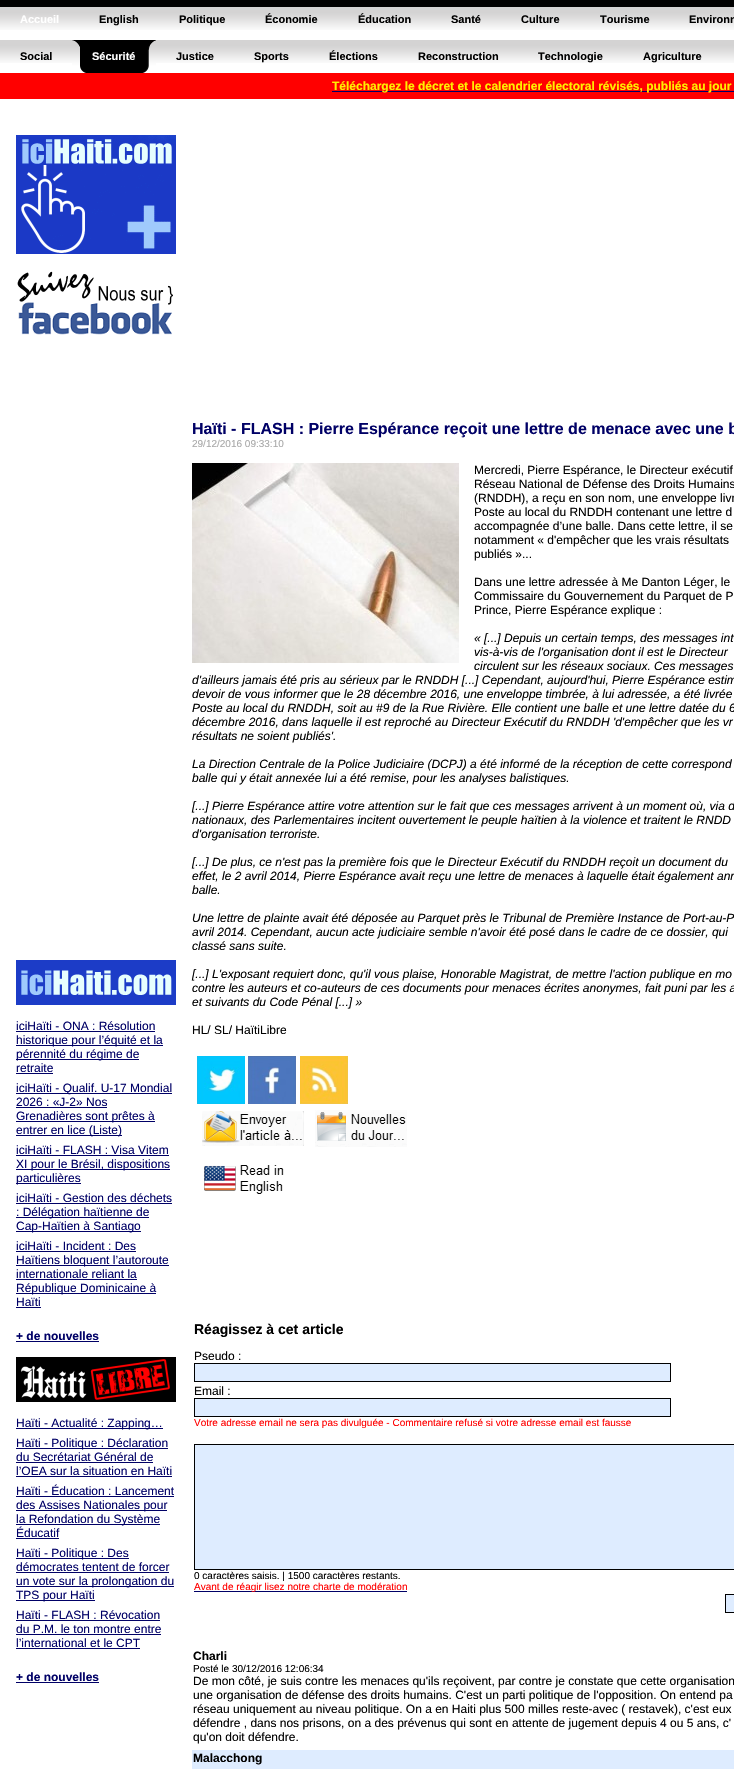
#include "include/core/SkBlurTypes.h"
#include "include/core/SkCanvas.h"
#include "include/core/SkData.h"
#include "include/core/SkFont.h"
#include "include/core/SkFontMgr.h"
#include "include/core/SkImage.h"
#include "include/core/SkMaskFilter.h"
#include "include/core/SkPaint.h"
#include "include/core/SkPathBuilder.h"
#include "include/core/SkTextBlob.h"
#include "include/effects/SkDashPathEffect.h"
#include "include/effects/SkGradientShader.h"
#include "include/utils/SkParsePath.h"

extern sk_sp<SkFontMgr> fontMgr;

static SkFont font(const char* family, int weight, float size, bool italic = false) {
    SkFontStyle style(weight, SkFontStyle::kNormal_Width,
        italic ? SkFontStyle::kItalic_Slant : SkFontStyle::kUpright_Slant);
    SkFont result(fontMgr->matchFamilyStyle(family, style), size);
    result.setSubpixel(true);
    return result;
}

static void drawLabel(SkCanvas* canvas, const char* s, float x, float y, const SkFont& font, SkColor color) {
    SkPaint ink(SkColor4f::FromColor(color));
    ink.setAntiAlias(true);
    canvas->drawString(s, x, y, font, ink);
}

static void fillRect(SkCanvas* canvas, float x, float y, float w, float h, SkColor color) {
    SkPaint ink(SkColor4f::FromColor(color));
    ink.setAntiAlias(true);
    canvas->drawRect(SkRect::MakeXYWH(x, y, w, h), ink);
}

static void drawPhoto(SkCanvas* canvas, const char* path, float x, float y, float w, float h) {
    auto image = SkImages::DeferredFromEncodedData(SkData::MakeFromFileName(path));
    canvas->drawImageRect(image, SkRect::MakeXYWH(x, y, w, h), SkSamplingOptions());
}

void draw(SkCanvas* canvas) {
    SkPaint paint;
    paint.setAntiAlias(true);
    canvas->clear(0xFFFFFFFF);
    drawPhoto(canvas, "assets/img1.png", 0, 0, 734, 30);
    SkFont font1 = font("Liberation Sans", 700, 11);
    drawLabel(canvas, "Accueil", 20, 23, font1, 0xFFFFFFFF);
    drawLabel(canvas, "English", 99, 23, font1, 0xFF000000);
    drawLabel(canvas, "Politique", 179, 23, font1, 0xFF000000);
    drawLabel(canvas, "Économie", 265, 23, font1, 0xFF000000);
    drawLabel(canvas, "Éducation", 358, 23, font1, 0xFF000000);
    drawLabel(canvas, "Santé", 451, 23, font1, 0xFF000000);
    drawLabel(canvas, "Culture", 521, 23, font1, 0xFF000000);
    drawLabel(canvas, "Tourisme", 600, 23, font1, 0xFF000000);
    drawLabel(canvas, "Environn", 689, 23, font1, 0xFF000000);
    drawPhoto(canvas, "assets/img2.png", 0, 40, 734, 23);
    drawLabel(canvas, "Social", 20, 60, font1, 0xFF000000);
    drawPhoto(canvas, "assets/img3.png", 72, 40, 19, 33);
    drawPhoto(canvas, "assets/img4.png", 91, 40, 65, 33);
    drawLabel(canvas, "Sécurité", 92, 60, font1, 0xFFFFFFFF);
    drawLabel(canvas, "Justice", 176, 60, font1, 0xFF000000);
    drawLabel(canvas, "Sports", 254, 60, font1, 0xFF000000);
    drawLabel(canvas, "Élections", 329, 60, font1, 0xFF000000);
    drawLabel(canvas, "Reconstruction", 418, 60, font1, 0xFF000000);
    drawLabel(canvas, "Technologie", 538, 60, font1, 0xFF000000);
    drawLabel(canvas, "Agriculture", 643, 60, font1, 0xFF000000);
    fillRect(canvas, 0, 73, 734, 26, 0xFFFF0000);
    fillRect(canvas, 332, 91, 402, 1, 0xFF000066);
    SkFont font2 = font("Liberation Sans", 700, 12);
    drawLabel(canvas, "Téléchargez le décret et le calendrier électoral révisés, publiés au jour", 332, 90, font2, 0xFFFFF000);
    drawPhoto(canvas, "assets/img5.png", 16, 135, 160, 119);
    drawPhoto(canvas, "assets/img6.png", 17, 271, 156, 64);
    drawPhoto(canvas, "assets/img7.png", 16, 960, 160, 45);
    SkFont font3 = font("Liberation Sans", 400, 12);
    drawLabel(canvas, "iciHaïti - ONA : Résolution", 16, 1030, font3, 0xFF000066);
    fillRect(canvas, 16, 1031, 139, 1, 0xFF000066);
    fillRect(canvas, 16, 1045, 147, 1, 0xFF000066);
    drawLabel(canvas, "historique pour l’équité et la", 16, 1044, font3, 0xFF000066);
    fillRect(canvas, 16, 1059, 123, 1, 0xFF000066);
    drawLabel(canvas, "pérennité du régime de", 16, 1058, font3, 0xFF000066);
    drawLabel(canvas, "retraite", 16, 1072, font3, 0xFF000066);
    fillRect(canvas, 16, 1073, 37, 1, 0xFF000066);
    fillRect(canvas, 16, 1093, 156, 1, 0xFF000066);
    drawLabel(canvas, "iciHaïti - Qualif. U-17 Mondial", 16, 1092, font3, 0xFF000066);
    drawLabel(canvas, "2026 : «J-2» Nos", 16, 1106, font3, 0xFF000066);
    fillRect(canvas, 16, 1107, 91, 1, 0xFF000066);
    fillRect(canvas, 16, 1121, 139, 1, 0xFF000066);
    drawLabel(canvas, "Grenadières sont prêtes à", 16, 1120, font3, 0xFF000066);
    fillRect(canvas, 16, 1135, 106, 1, 0xFF000066);
    drawLabel(canvas, "entrer en lice (Liste)", 16, 1134, font3, 0xFF000066);
    drawLabel(canvas, "iciHaïti - FLASH : Visa Vitem", 16, 1154, font3, 0xFF000066);
    fillRect(canvas, 16, 1155, 153, 1, 0xFF000066);
    fillRect(canvas, 16, 1169, 154, 1, 0xFF000066);
    drawLabel(canvas, "XI pour le Brésil, dispositions", 16, 1168, font3, 0xFF000066);
    fillRect(canvas, 16, 1183, 65, 1, 0xFF000066);
    drawLabel(canvas, "particulières", 16, 1182, font3, 0xFF000066);
    drawLabel(canvas, "iciHaïti - Gestion des déchets", 16, 1202, font3, 0xFF000066);
    fillRect(canvas, 16, 1203, 156, 1, 0xFF000066);
    fillRect(canvas, 16, 1217, 133, 1, 0xFF000066);
    drawLabel(canvas, ": Délégation haïtienne de", 16, 1216, font3, 0xFF000066);
    fillRect(canvas, 16, 1231, 125, 1, 0xFF000066);
    drawLabel(canvas, "Cap-Haïtien à Santiago", 16, 1230, font3, 0xFF000066);
    drawLabel(canvas, "iciHaïti - Incident : Des", 16, 1250, font3, 0xFF000066);
    fillRect(canvas, 16, 1251, 120, 1, 0xFF000066);
    fillRect(canvas, 16, 1265, 153, 1, 0xFF000066);
    drawLabel(canvas, "Haïtiens bloquent l’autoroute", 16, 1264, font3, 0xFF000066);
    drawLabel(canvas, "internationale reliant la", 16, 1278, font3, 0xFF000066);
    fillRect(canvas, 16, 1279, 121, 1, 0xFF000066);
    fillRect(canvas, 16, 1293, 140, 1, 0xFF000066);
    drawLabel(canvas, "République Dominicaine à", 16, 1292, font3, 0xFF000066);
    drawLabel(canvas, "Haïti", 16, 1306, font3, 0xFF000066);
    fillRect(canvas, 16, 1307, 25, 1, 0xFF000066);
    drawLabel(canvas, "+ de nouvelles", 16, 1340, font2, 0xFF000066);
    fillRect(canvas, 16, 1341, 83, 1, 0xFF000066);
    drawPhoto(canvas, "assets/img8.png", 16, 1357, 160, 45);
    fillRect(canvas, 16, 1428, 147, 1, 0xFF000066);
    drawLabel(canvas, "Haïti - Actualité : Zapping…", 16, 1427, font3, 0xFF000066);
    fillRect(canvas, 16, 1448, 152, 1, 0xFF000066);
    drawLabel(canvas, "Haïti - Politique : Déclaration", 16, 1447, font3, 0xFF000066);
    drawLabel(canvas, "du Secrétariat Général de", 16, 1461, font3, 0xFF000066);
    fillRect(canvas, 16, 1462, 137, 1, 0xFF000066);
    drawLabel(canvas, "l’OEA sur la situation en Haïti", 16, 1475, font3, 0xFF000066);
    fillRect(canvas, 16, 1476, 156, 1, 0xFF000066);
    drawLabel(canvas, "Haïti - Éducation : Lancement", 16, 1495, font3, 0xFF000066);
    fillRect(canvas, 16, 1496, 158, 1, 0xFF000066);
    fillRect(canvas, 16, 1510, 151, 1, 0xFF000066);
    drawLabel(canvas, "des Assises Nationales pour", 16, 1509, font3, 0xFF000066);
    fillRect(canvas, 16, 1524, 144, 1, 0xFF000066);
    drawLabel(canvas, "la Refondation du Système", 16, 1523, font3, 0xFF000066);
    drawLabel(canvas, "Éducatif", 16, 1537, font3, 0xFF000066);
    fillRect(canvas, 16, 1538, 43, 1, 0xFF000066);
    fillRect(canvas, 16, 1558, 113, 1, 0xFF000066);
    drawLabel(canvas, "Haïti - Politique : Des", 16, 1557, font3, 0xFF000066);
    drawLabel(canvas, "démocrates tentent de forcer", 16, 1571, font3, 0xFF000066);
    fillRect(canvas, 16, 1572, 153, 1, 0xFF000066);
    fillRect(canvas, 16, 1586, 158, 1, 0xFF000066);
    drawLabel(canvas, "un vote sur la prolongation du", 16, 1585, font3, 0xFF000066);
    fillRect(canvas, 16, 1600, 79, 1, 0xFF000066);
    drawLabel(canvas, "TPS pour Haïti", 16, 1599, font3, 0xFF000066);
    drawLabel(canvas, "Haïti - FLASH : Révocation", 16, 1619, font3, 0xFF000066);
    fillRect(canvas, 16, 1620, 144, 1, 0xFF000066);
    drawLabel(canvas, "du P.M. le ton montre entre", 16, 1633, font3, 0xFF000066);
    fillRect(canvas, 16, 1634, 145, 1, 0xFF000066);
    drawLabel(canvas, "l’international et le CPT", 16, 1647, font3, 0xFF000066);
    fillRect(canvas, 16, 1648, 124, 1, 0xFF000066);
    drawLabel(canvas, "+ de nouvelles", 16, 1681, font2, 0xFF000066);
    fillRect(canvas, 16, 1682, 83, 1, 0xFF000066);
    SkFont font4 = font("Liberation Sans", 700, 16);
    drawLabel(canvas, "Haïti - FLASH : Pierre Espérance reçoit une lettre de menace avec une b", 192, 434, font4, 0xFF000066);
    SkFont font5 = font("Liberation Sans", 400, 10);
    drawLabel(canvas, "29/12/2016 09:33:10", 192, 447, font5, 0xFFA9A9A9);
    drawPhoto(canvas, "assets/img9.png", 192, 463, 267, 200);
    drawLabel(canvas, "Mercredi, Pierre Espérance, le Directeur exécutif", 474, 474, font3, 0xFF000000);
    drawLabel(canvas, "Réseau National de Défense des Droits Humains", 474, 488, font3, 0xFF000000);
    drawLabel(canvas, "(RNDDH), a reçu en son nom, une enveloppe livr", 474, 502, font3, 0xFF000000);
    drawLabel(canvas, "Poste au local du RNDDH contenant une lettre d", 474, 516, font3, 0xFF000000);
    drawLabel(canvas, "accompagnée d’une balle. Dans cette lettre, il se", 474, 530, font3, 0xFF000000);
    drawLabel(canvas, "notamment « d'empêcher que les vrais résultats", 474, 544, font3, 0xFF000000);
    drawLabel(canvas, "publiés »...", 474, 558, font3, 0xFF000000);
    drawLabel(canvas, "Dans une lettre adressée à Me Danton Léger, le", 474, 586, font3, 0xFF000000);
    drawLabel(canvas, "Commissaire du Gouvernement du Parquet de P", 474, 600, font3, 0xFF000000);
    drawLabel(canvas, "Prince, Pierre Espérance explique :", 474, 614, font3, 0xFF000000);
    SkFont font6 = font("Liberation Sans", 400, 12, true);
    drawLabel(canvas, "« [...] Depuis un certain temps, des messages int", 474, 642, font6, 0xFF000000);
    drawLabel(canvas, "vis-à-vis de l'organisation dont il est le Directeur", 474, 656, font6, 0xFF000000);
    drawLabel(canvas, "circulent sur les réseaux sociaux. Ces messages", 474, 670, font6, 0xFF000000);
    drawLabel(canvas, "d'ailleurs jamais été pris au sérieux par le RNDDH [...] Cependant, aujourd'hui, Pierre Espérance estim", 192, 684, font6, 0xFF000000);
    drawLabel(canvas, "devoir de vous informer que le 28 décembre 2016, une enveloppe timbrée, à lui adressée, a été livrée", 192, 698, font6, 0xFF000000);
    drawLabel(canvas, "Poste au local du RNDDH, soit au #9 de la Rue Rivière. Elle contient une balle et une lettre datée du 6", 192, 712, font6, 0xFF000000);
    drawLabel(canvas, "décembre 2016, dans laquelle il est reproché au Directeur Exécutif du RNDDH 'd'empêcher que les vr", 192, 726, font6, 0xFF000000);
    drawLabel(canvas, "résultats ne soient publiés'.", 192, 740, font6, 0xFF000000);
    drawLabel(canvas, "La Direction Centrale de la Police Judiciaire (DCPJ) a été informé de la réception de cette correspond", 192, 768, font6, 0xFF000000);
    drawLabel(canvas, "balle qui y était annexée lui a été remise, pour les analyses balistiques.", 192, 782, font6, 0xFF000000);
    drawLabel(canvas, "[...] Pierre Espérance attire votre attention sur le fait que ces messages arrivent à un moment où, via d", 192, 810, font6, 0xFF000000);
    drawLabel(canvas, "nationaux, des Parlementaires incitent ouvertement le peuple haïtien à la violence et traitent le RNDD", 192, 824, font6, 0xFF000000);
    drawLabel(canvas, "d'organisation terroriste.", 192, 838, font6, 0xFF000000);
    drawLabel(canvas, "[...] De plus, ce n'est pas la première fois que le Directeur Exécutif du RNDDH reçoit un document du", 192, 866, font6, 0xFF000000);
    drawLabel(canvas, "effet, le 2 avril 2014, Pierre Espérance avait reçu une lettre de menaces à laquelle était également ann", 192, 880, font6, 0xFF000000);
    drawLabel(canvas, "balle.", 192, 894, font6, 0xFF000000);
    drawLabel(canvas, "Une lettre de plainte avait été déposée au Parquet près le Tribunal de Première Instance de Port-au-P", 192, 922, font6, 0xFF000000);
    drawLabel(canvas, "avril 2014. Cependant, aucun acte judiciaire semble n'avoir été posé dans le cadre de ce dossier, qui", 192, 936, font6, 0xFF000000);
    drawLabel(canvas, "classé sans suite.", 192, 950, font6, 0xFF000000);
    drawLabel(canvas, "[...] L'exposant requiert donc, qu'il vous plaise, Honorable Magistrat, de mettre l'action publique en mo", 192, 978, font6, 0xFF000000);
    drawLabel(canvas, "contre les auteurs et co-auteurs de ces documents pour menaces écrites anonymes, fait puni par les a", 192, 992, font6, 0xFF000000);
    drawLabel(canvas, "et suivants du Code Pénal [...] »", 192, 1006, font6, 0xFF000000);
    drawLabel(canvas, "HL/ SL/ HaïtiLibre", 192, 1034, font3, 0xFF000000);
    drawPhoto(canvas, "assets/img10.png", 197, 1056, 48, 48);
    drawPhoto(canvas, "assets/img11.png", 248, 1056, 48, 48);
    drawPhoto(canvas, "assets/img12.png", 300, 1056, 48, 48);
    drawPhoto(canvas, "assets/img13.png", 202, 1111, 102, 35);
    drawPhoto(canvas, "assets/img14.png", 315, 1110, 92, 37);
    drawPhoto(canvas, "assets/img15.png", 204, 1165, 80, 29);
    SkFont font7 = font("Liberation Sans", 700, 14);
    drawLabel(canvas, "Réagissez à cet article", 194, 1334, font7, 0xFF000000);
    drawLabel(canvas, "Pseudo :", 194, 1360, font3, 0xFF000000);
    paint.setColor(0xFFDEECFF);
    canvas->drawRect(SkRect::MakeXYWH(194.5f, 1363.5f, 476, 18), paint);
    paint.setStroke(true);
    paint.setStrokeWidth(1);
    paint.setColor(0xFF000000);
    canvas->drawRect(SkRect::MakeXYWH(194.5f, 1363.5f, 476, 18), paint);
    drawLabel(canvas, "Email :", 194, 1395, font3, 0xFF000000);
    paint.setStroke(false);
    paint.setColor(0xFFDEECFF);
    canvas->drawRect(SkRect::MakeXYWH(194.5f, 1398.5f, 476, 18), paint);
    paint.setStroke(true);
    paint.setColor(0xFF000000);
    canvas->drawRect(SkRect::MakeXYWH(194.5f, 1398.5f, 476, 18), paint);
    drawLabel(canvas, "Votre adresse email ne sera pas divulguée - Commentaire refusé si votre adresse email est fausse", 194, 1426, font5, 0xFFFF0000);
    paint.setStroke(false);
    paint.setColor(0xFFDEECFF);
    canvas->drawRect(SkRect::MakeXYWH(194.5f, 1444.5f, 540, 125), paint);
    paint.setStroke(true);
    paint.setColor(0xFF000000);
    canvas->drawRect(SkRect::MakeXYWH(194.5f, 1444.5f, 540, 125), paint);
    drawLabel(canvas, "0 caractères saisis. | 1500 caractères restants.", 194, 1579, font5, 0xFF000000);
    fillRect(canvas, 194, 1591, 213, 1, 0xFF000066);
    drawLabel(canvas, "Avant de réagir lisez notre charte de modération", 194, 1590, font5, 0xFFFF0000);
    paint.setStroke(false);
    paint.setColor(0xFFDEECFF);
    canvas->drawRect(SkRect::MakeXYWH(725.5f, 1594.5f, 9, 18), paint);
    paint.setStroke(true);
    paint.setColor(0xFF000000);
    canvas->drawRect(SkRect::MakeXYWH(725.5f, 1594.5f, 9, 18), paint);
    drawLabel(canvas, "Charli", 193, 1660, font2, 0xFF000000);
    drawLabel(canvas, "Posté le 30/12/2016 12:06:34", 193, 1672, font5, 0xFF000000);
    drawLabel(canvas, "De mon côté, je suis contre les menaces qu'ils reçoivent, par contre je constate que cette organisation", 193, 1685, font3, 0xFF000000);
    drawLabel(canvas, "une organisation de défense des droits humains. C'est un parti politique de l'opposition. On entend pa", 193, 1699, font3, 0xFF000000);
    drawLabel(canvas, "réseau uniquement au niveau politique. On a en Haiti plus 500 milles reste-avec ( restavek), c'est eux", 193, 1713, font3, 0xFF000000);
    drawLabel(canvas, "défendre , dans nos prisons, on a des prévenus qui sont en attente de jugement depuis 4 ou 5 ans, c'", 193, 1727, font3, 0xFF000000);
    drawLabel(canvas, "qu'on doit défendre.", 193, 1741, font3, 0xFF000000);
    fillRect(canvas, 192, 1750, 542, 19, 0xFFDEECFF);
    drawLabel(canvas, "Malacchong", 193, 1762, font2, 0xFF000000);
}
